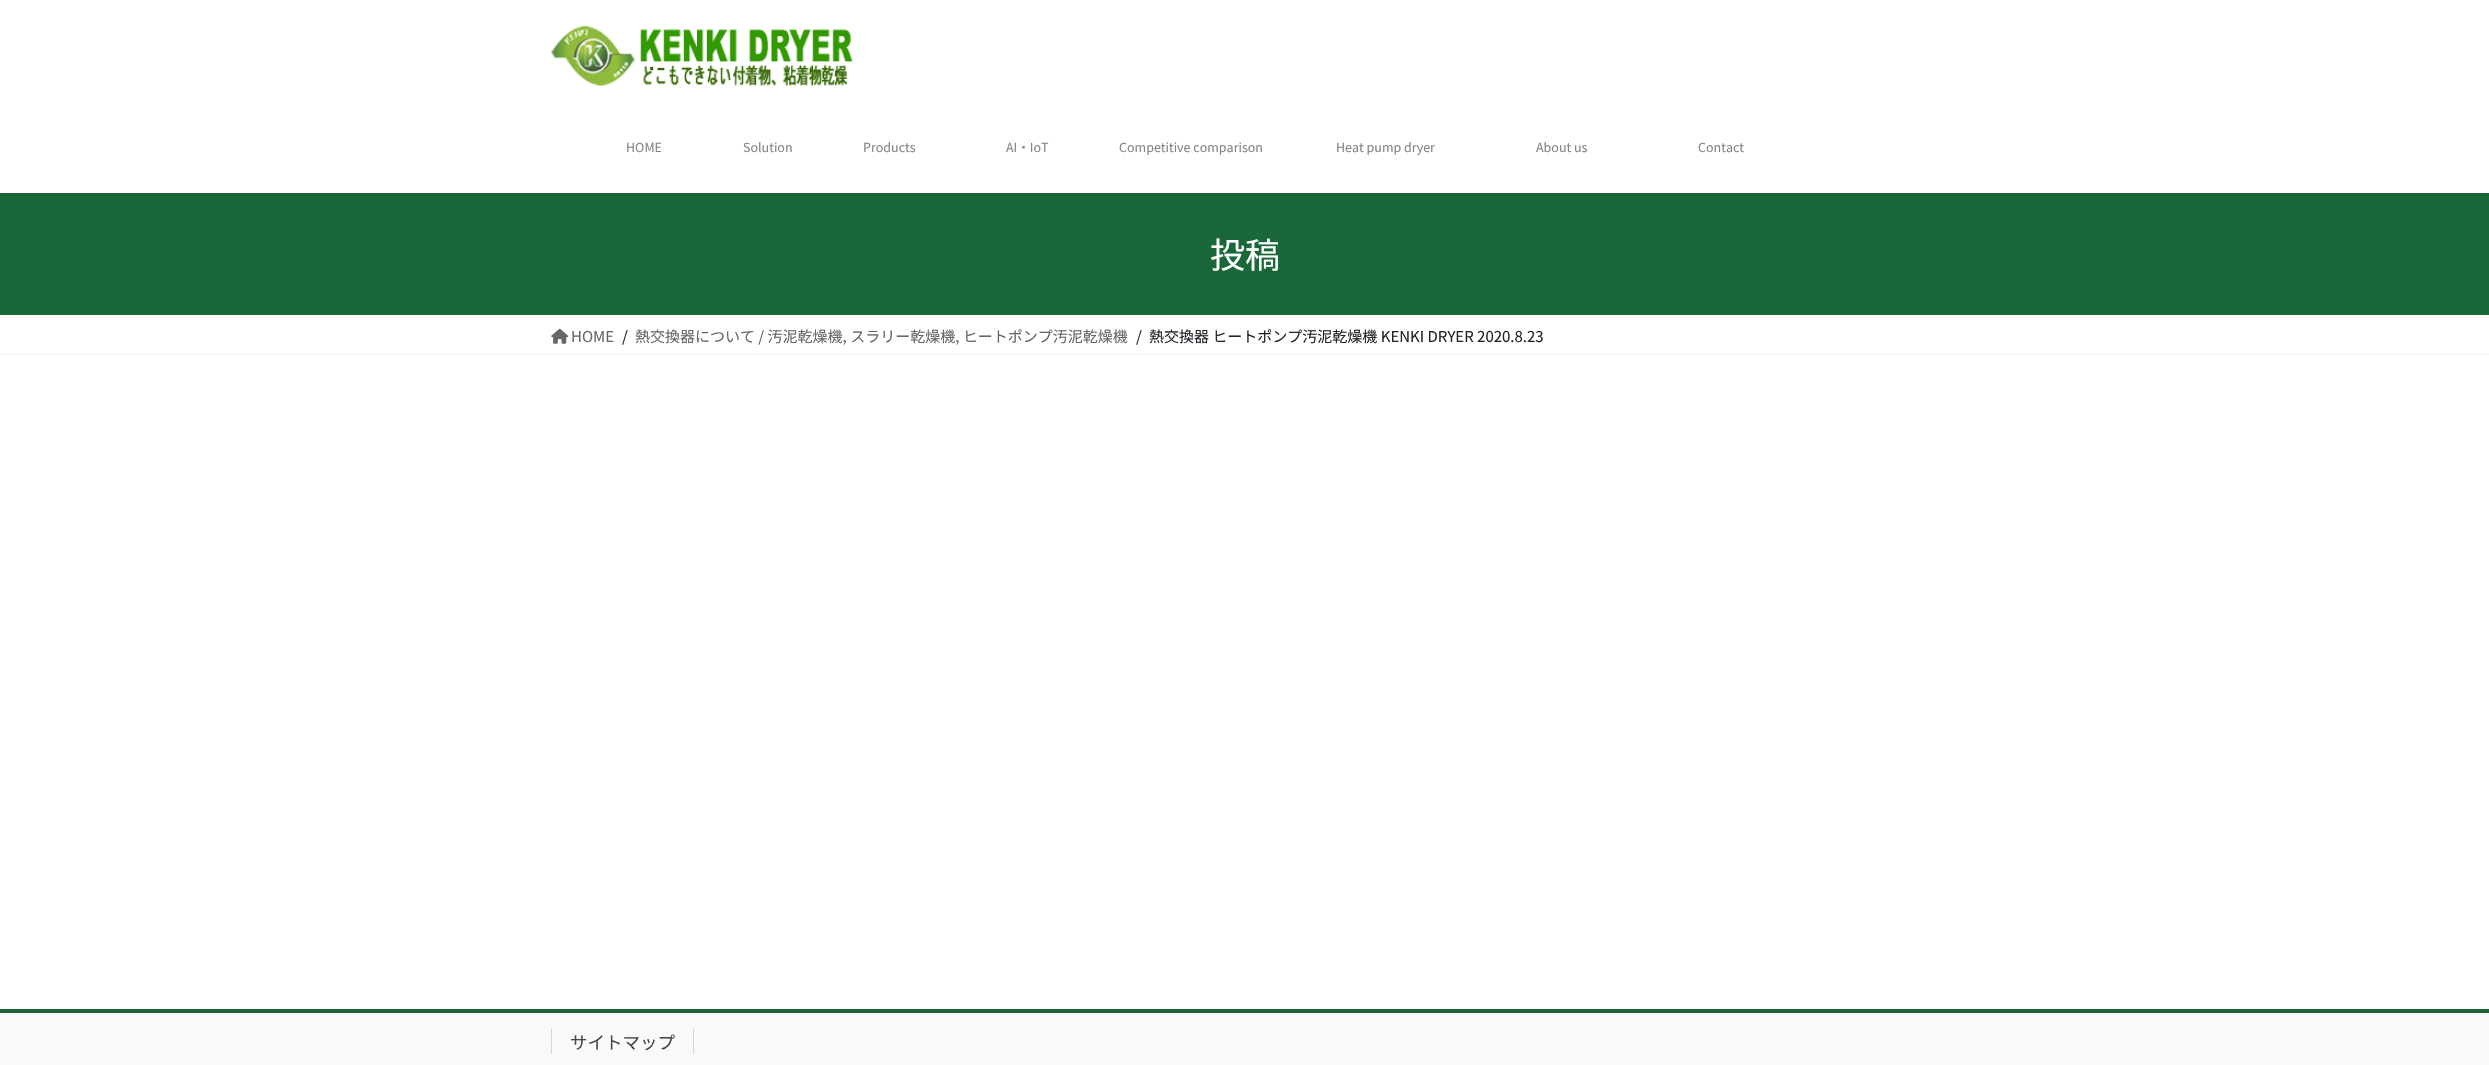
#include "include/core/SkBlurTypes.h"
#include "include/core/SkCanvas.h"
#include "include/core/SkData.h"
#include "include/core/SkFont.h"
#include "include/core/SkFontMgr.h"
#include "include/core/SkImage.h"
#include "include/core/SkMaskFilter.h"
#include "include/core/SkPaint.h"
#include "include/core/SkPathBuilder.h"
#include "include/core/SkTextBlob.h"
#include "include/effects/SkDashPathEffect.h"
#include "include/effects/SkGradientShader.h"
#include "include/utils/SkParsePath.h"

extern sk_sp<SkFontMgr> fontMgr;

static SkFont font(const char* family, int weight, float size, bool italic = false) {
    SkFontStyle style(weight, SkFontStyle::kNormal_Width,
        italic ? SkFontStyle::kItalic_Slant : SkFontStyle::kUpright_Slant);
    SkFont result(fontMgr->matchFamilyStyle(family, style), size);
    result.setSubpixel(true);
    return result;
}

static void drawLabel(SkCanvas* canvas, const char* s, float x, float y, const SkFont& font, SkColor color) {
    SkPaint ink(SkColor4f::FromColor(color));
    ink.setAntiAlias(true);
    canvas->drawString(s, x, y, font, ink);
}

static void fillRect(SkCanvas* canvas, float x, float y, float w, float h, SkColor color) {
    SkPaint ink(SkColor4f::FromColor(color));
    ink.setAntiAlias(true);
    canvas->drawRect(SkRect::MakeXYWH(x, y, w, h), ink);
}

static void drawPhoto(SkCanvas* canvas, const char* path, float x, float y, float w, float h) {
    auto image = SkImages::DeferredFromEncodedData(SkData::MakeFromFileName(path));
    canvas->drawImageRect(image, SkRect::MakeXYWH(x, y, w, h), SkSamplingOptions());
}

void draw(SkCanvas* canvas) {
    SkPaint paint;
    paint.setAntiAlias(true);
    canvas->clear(0xFFFFFFFF);
    fillRect(canvas, 0, 193, 2489, 122, 0xFF1A6839);
    paint.setColor(0x1A000000);
    paint.setMaskFilter(SkMaskFilter::MakeBlur(kNormal_SkBlurStyle, 2));
    canvas->drawRect(SkRect::MakeXYWH(0, 1, 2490, 193), paint);
    paint.setMaskFilter(nullptr);
    fillRect(canvas, 0, 0, 2489, 193, 0xFFFFFFFF);
    drawPhoto(canvas, "assets/img1.png", 551, 26, 302, 60);
    SkFont font1 = font("Noto Sans JP", 400, 12.5f);
    drawLabel(canvas, "HOME", 626, 152, font1, 0xFF858585);
    drawLabel(canvas, "Solution", 743, 152, font1, 0xFF858585);
    drawLabel(canvas, "Products", 863, 152, font1, 0xFF858585);
    drawLabel(canvas, "AI・IoT", 1006, 152, font1, 0xFF858585);
    drawLabel(canvas, "Competitive comparison", 1119, 152, font1, 0xFF858585);
    drawLabel(canvas, "Heat pump dryer", 1336, 152, font1, 0xFF858585);
    drawLabel(canvas, "About us", 1536, 152, font1, 0xFF858585);
    drawLabel(canvas, "Contact", 1698, 152, font1, 0xFF858585);
    SkFont font2 = font("Noto Sans JP", 400, 35);
    drawLabel(canvas, "投稿", 1210, 268, font2, 0xFFFFFFFF);
    fillRect(canvas, 0, 354, 2489, 1, 0xFFF2F2F2);
    drawPhoto(canvas, "assets/img2.png", 551, 328, 18, 16);
    SkFont font3 = font("Noto Sans JP", 400, 15);
    drawLabel(canvas, "HOME", 571, 342, font3, 0xFF666666);
    drawLabel(canvas, "/", 622, 342, font3, 0xFF212529);
    drawLabel(canvas, "熱交換器について / 汚泥乾燥機, スラリー乾燥機, ヒートポンプ汚泥乾燥機", 635, 342, font3, 0xFF666666);
    drawLabel(canvas, "/", 1136, 342, font3, 0xFF212529);
    drawLabel(canvas, "熱交換器 ヒートポンプ汚泥乾燥機 KENKI DRYER 2020.8.23", 1149, 342, font3, 0xFF212529);
    fillRect(canvas, 0, 1013, 2489, 52, 0xFFF9F9F9);
    fillRect(canvas, 0, 1009, 2489, 4, 0xFF1A6839);
    SkFont font4 = font("Noto Sans JP", 400, 17.5f);
    drawLabel(canvas, "サイトマップ", 570, 1049, font4, 0xFF464646);
    fillRect(canvas, 693, 1029, 1, 25, 0xFFD4D4D4);
    fillRect(canvas, 551, 1029, 1, 25, 0xFFD4D4D4);
}
